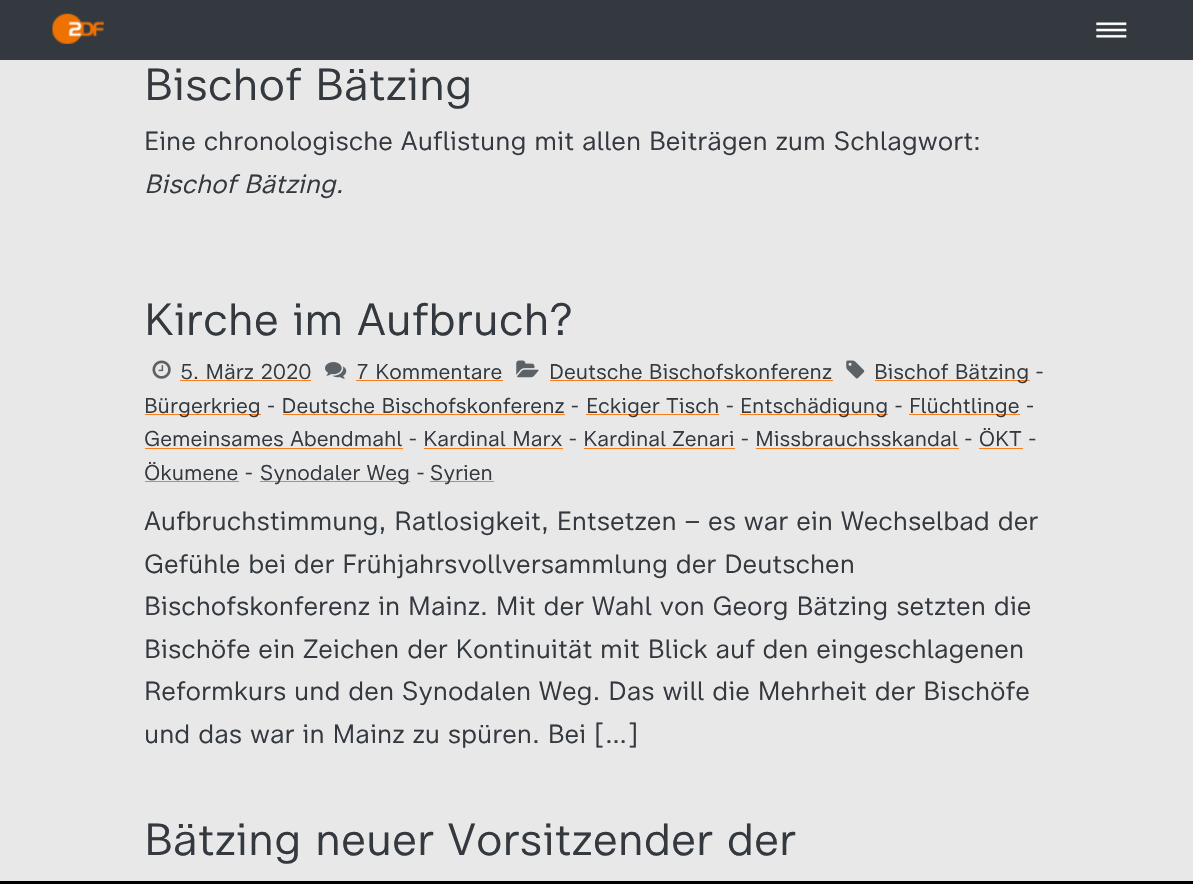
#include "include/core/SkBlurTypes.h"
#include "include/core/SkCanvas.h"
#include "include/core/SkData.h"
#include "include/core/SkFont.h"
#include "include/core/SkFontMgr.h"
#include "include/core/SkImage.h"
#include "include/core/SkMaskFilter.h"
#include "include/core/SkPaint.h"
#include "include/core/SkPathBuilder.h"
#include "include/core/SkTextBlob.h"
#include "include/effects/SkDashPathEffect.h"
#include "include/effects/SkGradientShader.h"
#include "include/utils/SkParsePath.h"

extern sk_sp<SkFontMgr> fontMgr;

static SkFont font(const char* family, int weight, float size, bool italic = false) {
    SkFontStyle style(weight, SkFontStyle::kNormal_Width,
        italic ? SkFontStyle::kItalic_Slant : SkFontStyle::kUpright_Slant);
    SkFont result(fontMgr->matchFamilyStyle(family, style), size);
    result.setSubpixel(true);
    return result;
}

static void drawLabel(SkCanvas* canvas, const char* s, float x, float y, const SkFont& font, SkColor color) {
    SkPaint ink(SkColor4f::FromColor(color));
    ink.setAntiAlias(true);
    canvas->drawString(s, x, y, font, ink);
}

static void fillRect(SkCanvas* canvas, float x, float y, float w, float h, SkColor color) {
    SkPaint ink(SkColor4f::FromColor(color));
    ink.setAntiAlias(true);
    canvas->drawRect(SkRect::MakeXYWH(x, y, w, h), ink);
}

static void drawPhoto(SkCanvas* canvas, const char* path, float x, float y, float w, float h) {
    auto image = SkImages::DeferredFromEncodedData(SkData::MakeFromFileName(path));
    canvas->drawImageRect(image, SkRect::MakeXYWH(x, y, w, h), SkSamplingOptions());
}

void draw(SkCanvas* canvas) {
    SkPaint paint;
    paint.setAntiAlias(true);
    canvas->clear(0xFF34393F);
    drawPhoto(canvas, "assets/img1.png", 52, 13, 52, 31);
    drawPhoto(canvas, "assets/img2.png", 1096, 22, 31, 16);
    fillRect(canvas, 0, 60, 1193, 821, 0xFFE8E8E8);
    SkFont font1 = font("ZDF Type", 300, 45);
    drawLabel(canvas, "Bischof Bätzing", 144, 100, font1, 0xFF34393F);
    SkFont font2 = font("ZDF Type", 300, 26.25f);
    drawLabel(canvas, "Eine chronologische Auflistung mit allen Beiträgen zum Schlagwort:", 144, 150, font2, 0xFF34393F);
    SkFont font3 = font("ZDF Type", 300, 26.25f, true);
    drawLabel(canvas, "Bischof Bätzing.", 144, 193, font3, 0xFF34393F);
    drawLabel(canvas, "Kirche im Aufbruch?", 144, 335, font1, 0xFF34393F);
    drawPhoto(canvas, "assets/img3.png", 152, 360, 19, 19);
    SkFont font4 = font("ZDF Type", 300, 21.25f);
    drawLabel(canvas, "5. März 2020", 180, 379, font4, 0xFF34393F);
    fillRect(canvas, 180, 380, 131, 1, 0xFFFA7D19);
    drawPhoto(canvas, "assets/img4.png", 325, 362, 22, 17);
    drawLabel(canvas, "7 Kommentare", 356, 379, font4, 0xFF34393F);
    fillRect(canvas, 356, 380, 147, 1, 0xFFFA7D19);
    drawPhoto(canvas, "assets/img5.png", 516, 360, 23, 18);
    drawLabel(canvas, "Deutsche Bischofskonferenz", 549, 379, font4, 0xFF34393F);
    fillRect(canvas, 550, 380, 283, 1, 0xFFFA7D19);
    drawPhoto(canvas, "assets/img6.png", 846, 360, 19, 19);
    fillRect(canvas, 875, 380, 155, 1, 0xFFFA7D19);
    drawLabel(canvas, "Bischof Bätzing -", 874, 379, font4, 0xFF34393F);
    fillRect(canvas, 145, 414, 116, 1, 0xFFFA7D19);
    drawLabel(canvas, "Bürgerkrieg - Deutsche Bischofskonferenz -", 144, 413, font4, 0xFF34393F);
    fillRect(canvas, 586, 414, 133, 1, 0xFFFA7D19);
    drawLabel(canvas, "Eckiger Tisch -", 586, 413, font4, 0xFF34393F);
    fillRect(canvas, 740, 414, 148, 1, 0xFFFA7D19);
    drawLabel(canvas, "Entschädigung -", 740, 413, font4, 0xFF34393F);
    fillRect(canvas, 909, 414, 111, 1, 0xFFFA7D19);
    drawLabel(canvas, "Flüchtlinge -", 909, 413, font4, 0xFF34393F);
    fillRect(canvas, 283, 414, 282, 1, 0xFFFA7D19);
    drawLabel(canvas, "Gemeinsames Abendmahl - Kardinal Marx - Kardinal Zenari - Missbrauchsskandal - ÖKT -", 144, 446, font4, 0xFF34393F);
    fillRect(canvas, 145, 448, 258, 1, 0xFFFA7D19);
    fillRect(canvas, 424, 448, 139, 1, 0xFFFA7D19);
    fillRect(canvas, 584, 448, 151, 1, 0xFFFA7D19);
    fillRect(canvas, 756, 448, 203, 1, 0xFFFA7D19);
    fillRect(canvas, 979, 448, 44, 1, 0xFFFA7D19);
    drawLabel(canvas, "Ökumene -", 144, 480, font4, 0xFF34393F);
    fillRect(canvas, 145, 481, 94, 1, 0xFFFA7D19);
    fillRect(canvas, 260, 481, 150, 1, 0xFFFA7D19);
    drawLabel(canvas, "Synodaler Weg -", 260, 480, font4, 0xFF34393F);
    fillRect(canvas, 430, 481, 64, 1, 0xFFFA7D19);
    drawLabel(canvas, "Syrien", 430, 480, font4, 0xFF34393F);
    drawLabel(canvas, "Aufbruchstimmung, Ratlosigkeit, Entsetzen – es war ein Wechselbad der", 144, 530, font2, 0xFF34393F);
    drawLabel(canvas, "Gefühle bei der Frühjahrsvollversammlung der Deutschen", 144, 573, font2, 0xFF34393F);
    drawLabel(canvas, "Bischofskonferenz in Mainz. Mit der Wahl von Georg Bätzing setzten die", 144, 615, font2, 0xFF34393F);
    drawLabel(canvas, "Bischöfe ein Zeichen der Kontinuität mit Blick auf den eingeschlagenen", 144, 658, font2, 0xFF34393F);
    drawLabel(canvas, "Reformkurs und den Synodalen Weg. Das will die Mehrheit der Bischöfe", 144, 700, font2, 0xFF34393F);
    drawLabel(canvas, "und das war in Mainz zu spüren. Bei […]", 144, 743, font2, 0xFF34393F);
    drawLabel(canvas, "Bätzing neuer Vorsitzender der", 144, 855, font1, 0xFF34393F);
    fillRect(canvas, 0, 881, 1193, 3, 0xFF000000);
}
